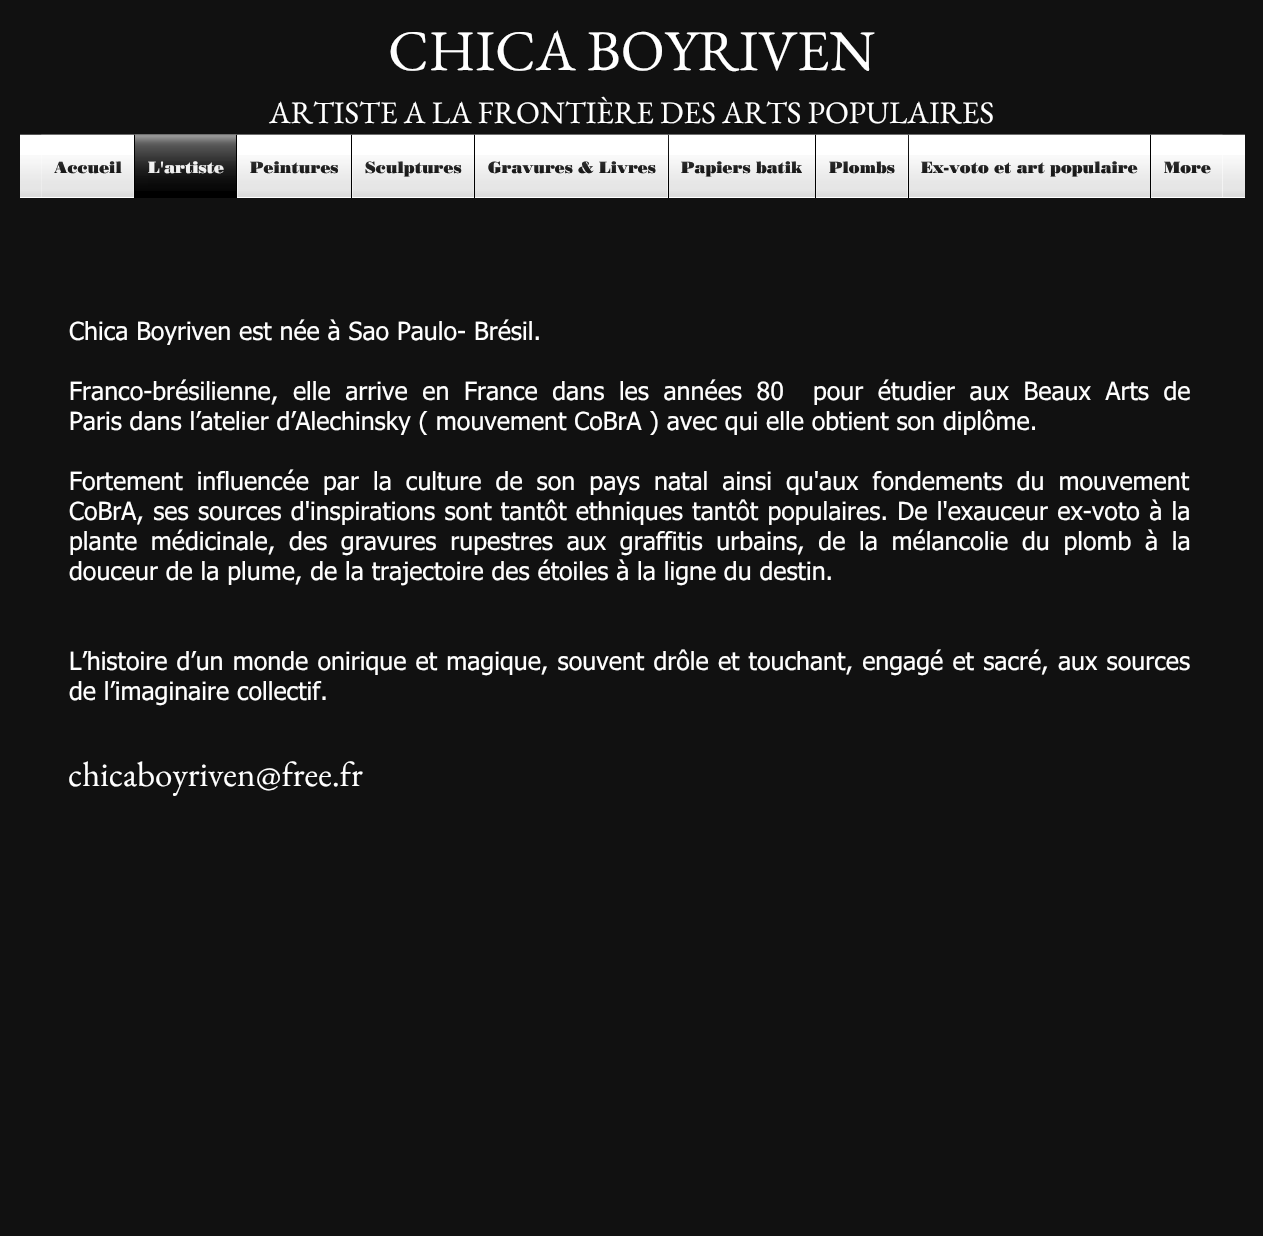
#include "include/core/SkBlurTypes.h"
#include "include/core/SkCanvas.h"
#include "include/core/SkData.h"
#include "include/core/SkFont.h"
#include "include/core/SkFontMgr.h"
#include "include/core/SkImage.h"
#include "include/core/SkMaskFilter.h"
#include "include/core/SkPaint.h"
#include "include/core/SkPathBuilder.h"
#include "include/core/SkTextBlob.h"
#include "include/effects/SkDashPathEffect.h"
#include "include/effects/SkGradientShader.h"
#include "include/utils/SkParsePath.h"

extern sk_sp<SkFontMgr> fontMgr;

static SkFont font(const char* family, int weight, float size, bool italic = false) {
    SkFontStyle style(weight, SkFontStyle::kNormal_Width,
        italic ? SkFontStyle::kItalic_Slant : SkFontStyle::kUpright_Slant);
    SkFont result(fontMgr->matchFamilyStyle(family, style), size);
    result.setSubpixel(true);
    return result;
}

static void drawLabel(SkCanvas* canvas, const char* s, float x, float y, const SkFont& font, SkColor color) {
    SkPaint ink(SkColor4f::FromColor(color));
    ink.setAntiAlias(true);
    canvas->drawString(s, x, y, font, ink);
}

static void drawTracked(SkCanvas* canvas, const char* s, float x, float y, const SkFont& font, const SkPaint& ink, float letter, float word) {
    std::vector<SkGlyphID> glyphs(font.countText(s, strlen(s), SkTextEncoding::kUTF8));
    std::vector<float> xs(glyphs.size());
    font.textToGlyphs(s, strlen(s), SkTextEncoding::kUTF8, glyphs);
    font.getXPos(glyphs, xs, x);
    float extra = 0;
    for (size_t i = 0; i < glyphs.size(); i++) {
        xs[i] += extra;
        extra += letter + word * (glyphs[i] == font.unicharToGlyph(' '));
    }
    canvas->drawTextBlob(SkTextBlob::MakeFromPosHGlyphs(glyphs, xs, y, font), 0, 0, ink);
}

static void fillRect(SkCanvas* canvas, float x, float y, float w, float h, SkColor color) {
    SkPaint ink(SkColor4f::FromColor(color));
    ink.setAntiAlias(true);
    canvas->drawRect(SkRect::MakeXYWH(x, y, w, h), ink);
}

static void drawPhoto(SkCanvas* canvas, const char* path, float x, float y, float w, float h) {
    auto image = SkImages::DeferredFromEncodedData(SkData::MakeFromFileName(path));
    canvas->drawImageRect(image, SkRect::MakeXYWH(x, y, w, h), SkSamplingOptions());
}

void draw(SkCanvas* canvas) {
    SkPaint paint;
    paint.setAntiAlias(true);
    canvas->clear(0xFF111111);
    SkFont font1 = font("EB Garamond", 400, 57.5f);
    drawLabel(canvas, "CHICA BOYRIVEN", 388, 70, font1, 0xFFFFFFFF);
    SkFont font2 = font("EB Garamond", 400, 31.25f);
    drawLabel(canvas, "ARTISTE A LA FRONTIÈRE DES ARTS POPULAIRES", 269, 123, font2, 0xFFFFFFFF);
    fillRect(canvas, 20, 135, 1225, 63, 0xFFFFFFFF);
    fillRect(canvas, 20, 134, 1225, 1, 0xFF565656);
    drawPhoto(canvas, "assets/img1.png", 20, 155, 1225, 42);
    fillRect(canvas, 41, 155, 93, 42, 0xFFFFFFFF);
    SkFont font3 = font("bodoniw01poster", 900, 16.25f);
    drawLabel(canvas, "Accueil", 54, 173, font3, 0xFF000000);
    drawPhoto(canvas, "assets/img2.png", 41, 134, 93, 40);
    drawPhoto(canvas, "assets/img3.png", 41, 155, 93, 42);
    fillRect(canvas, 134, 135, 102, 63, 0xFF000000);
    drawLabel(canvas, "L'artiste", 148, 173, font3, 0xFFFFFFFF);
    drawPhoto(canvas, "assets/img4.png", 135, 134, 102, 57);
    drawPhoto(canvas, "assets/img5.png", 148, 161, 88, 36);
    fillRect(canvas, 237, 155, 114, 42, 0xFFFFFFFF);
    fillRect(canvas, 236, 135, 1, 63, 0xFF000000);
    drawLabel(canvas, "Peintures", 250, 173, font3, 0xFF000000);
    drawPhoto(canvas, "assets/img6.png", 237, 134, 115, 40);
    drawPhoto(canvas, "assets/img7.png", 237, 155, 114, 42);
    fillRect(canvas, 352, 155, 122, 42, 0xFFFFFFFF);
    fillRect(canvas, 351, 135, 1, 63, 0xFF000000);
    drawLabel(canvas, "Sculptures", 365, 173, font3, 0xFF000000);
    drawPhoto(canvas, "assets/img8.png", 352, 134, 122, 43);
    drawPhoto(canvas, "assets/img9.png", 352, 155, 122, 42);
    fillRect(canvas, 475, 155, 193, 42, 0xFFFFFFFF);
    fillRect(canvas, 474, 135, 1, 63, 0xFF000000);
    drawLabel(canvas, "Gravures & Livres", 488, 173, font3, 0xFF000000);
    drawPhoto(canvas, "assets/img10.png", 475, 134, 193, 40);
    drawPhoto(canvas, "assets/img11.png", 475, 155, 193, 42);
    fillRect(canvas, 669, 155, 146, 42, 0xFFFFFFFF);
    fillRect(canvas, 668, 135, 1, 63, 0xFF000000);
    drawLabel(canvas, "Papiers batik", 681, 173, font3, 0xFF000000);
    drawPhoto(canvas, "assets/img12.png", 668, 134, 147, 43);
    drawPhoto(canvas, "assets/img13.png", 669, 155, 146, 42);
    fillRect(canvas, 816, 155, 92, 42, 0xFFFFFFFF);
    fillRect(canvas, 815, 135, 1, 63, 0xFF000000);
    drawLabel(canvas, "Plombs", 829, 173, font3, 0xFF000000);
    drawPhoto(canvas, "assets/img14.png", 816, 134, 92, 40);
    drawPhoto(canvas, "assets/img15.png", 816, 155, 92, 42);
    fillRect(canvas, 909, 155, 241, 42, 0xFFFFFFFF);
    fillRect(canvas, 908, 135, 1, 63, 0xFF000000);
    drawLabel(canvas, "Ex-voto et art populaire", 921, 173, font3, 0xFF000000);
    drawPhoto(canvas, "assets/img16.png", 908, 134, 242, 43);
    drawPhoto(canvas, "assets/img17.png", 909, 155, 241, 42);
    fillRect(canvas, 1151, 155, 72, 42, 0xFFFFFFFF);
    fillRect(canvas, 1150, 135, 1, 63, 0xFF000000);
    drawLabel(canvas, "More", 1164, 173, font3, 0xFF000000);
    drawPhoto(canvas, "assets/img18.png", 1151, 134, 72, 40);
    drawPhoto(canvas, "assets/img19.png", 1151, 155, 72, 42);
    SkFont font4 = font("tahoma", 400, 25);
    drawLabel(canvas, "Chica Boyriven est née à Sao Paulo- Brésil.", 69, 340, font4, 0xFFFFFFFF);
    paint.setColor(0xFFFFFFFF);
    drawTracked(canvas, "Franco-brésilienne, elle arrive en France dans les années 80  pour étudier aux Beaux Arts de", 69, 400, font4, paint, 0, 6.75f);
    drawLabel(canvas, "Paris dans l’atelier d’Alechinsky ( mouvement CoBrA ) avec qui elle obtient son diplôme.", 69, 430, font4, 0xFFFFFFFF);
    drawTracked(canvas, "Fortement influencée par la culture de son pays natal ainsi qu'aux fondements du mouvement", 69, 490, font4, paint, 0, 6.25f);
    drawTracked(canvas, "CoBrA, ses sources d'inspirations sont tantôt ethniques tantôt populaires. De l'exauceur ex-voto à la", 69, 520, font4, paint, 0, 1.5f);
    drawTracked(canvas, "plante médicinale, des gravures rupestres aux graffitis urbains, de la mélancolie du plomb à la", 69, 550, font4, paint, 0, 5.9f);
    drawLabel(canvas, "douceur de la plume, de la trajectoire des étoiles à la ligne du destin.", 69, 580, font4, 0xFFFFFFFF);
    drawTracked(canvas, "L’histoire d’un monde onirique et magique, souvent drôle et touchant, engagé et sacré, aux sources", 69, 670, font4, paint, 0, 1.4f);
    drawLabel(canvas, "de l’imaginaire collectif.", 69, 700, font4, 0xFFFFFFFF);
    SkFont font5 = font("EB Garamond", 400, 35);
    drawLabel(canvas, "chicaboyriven@free.fr", 68, 786, font5, 0xFFFFFFFF);
}
